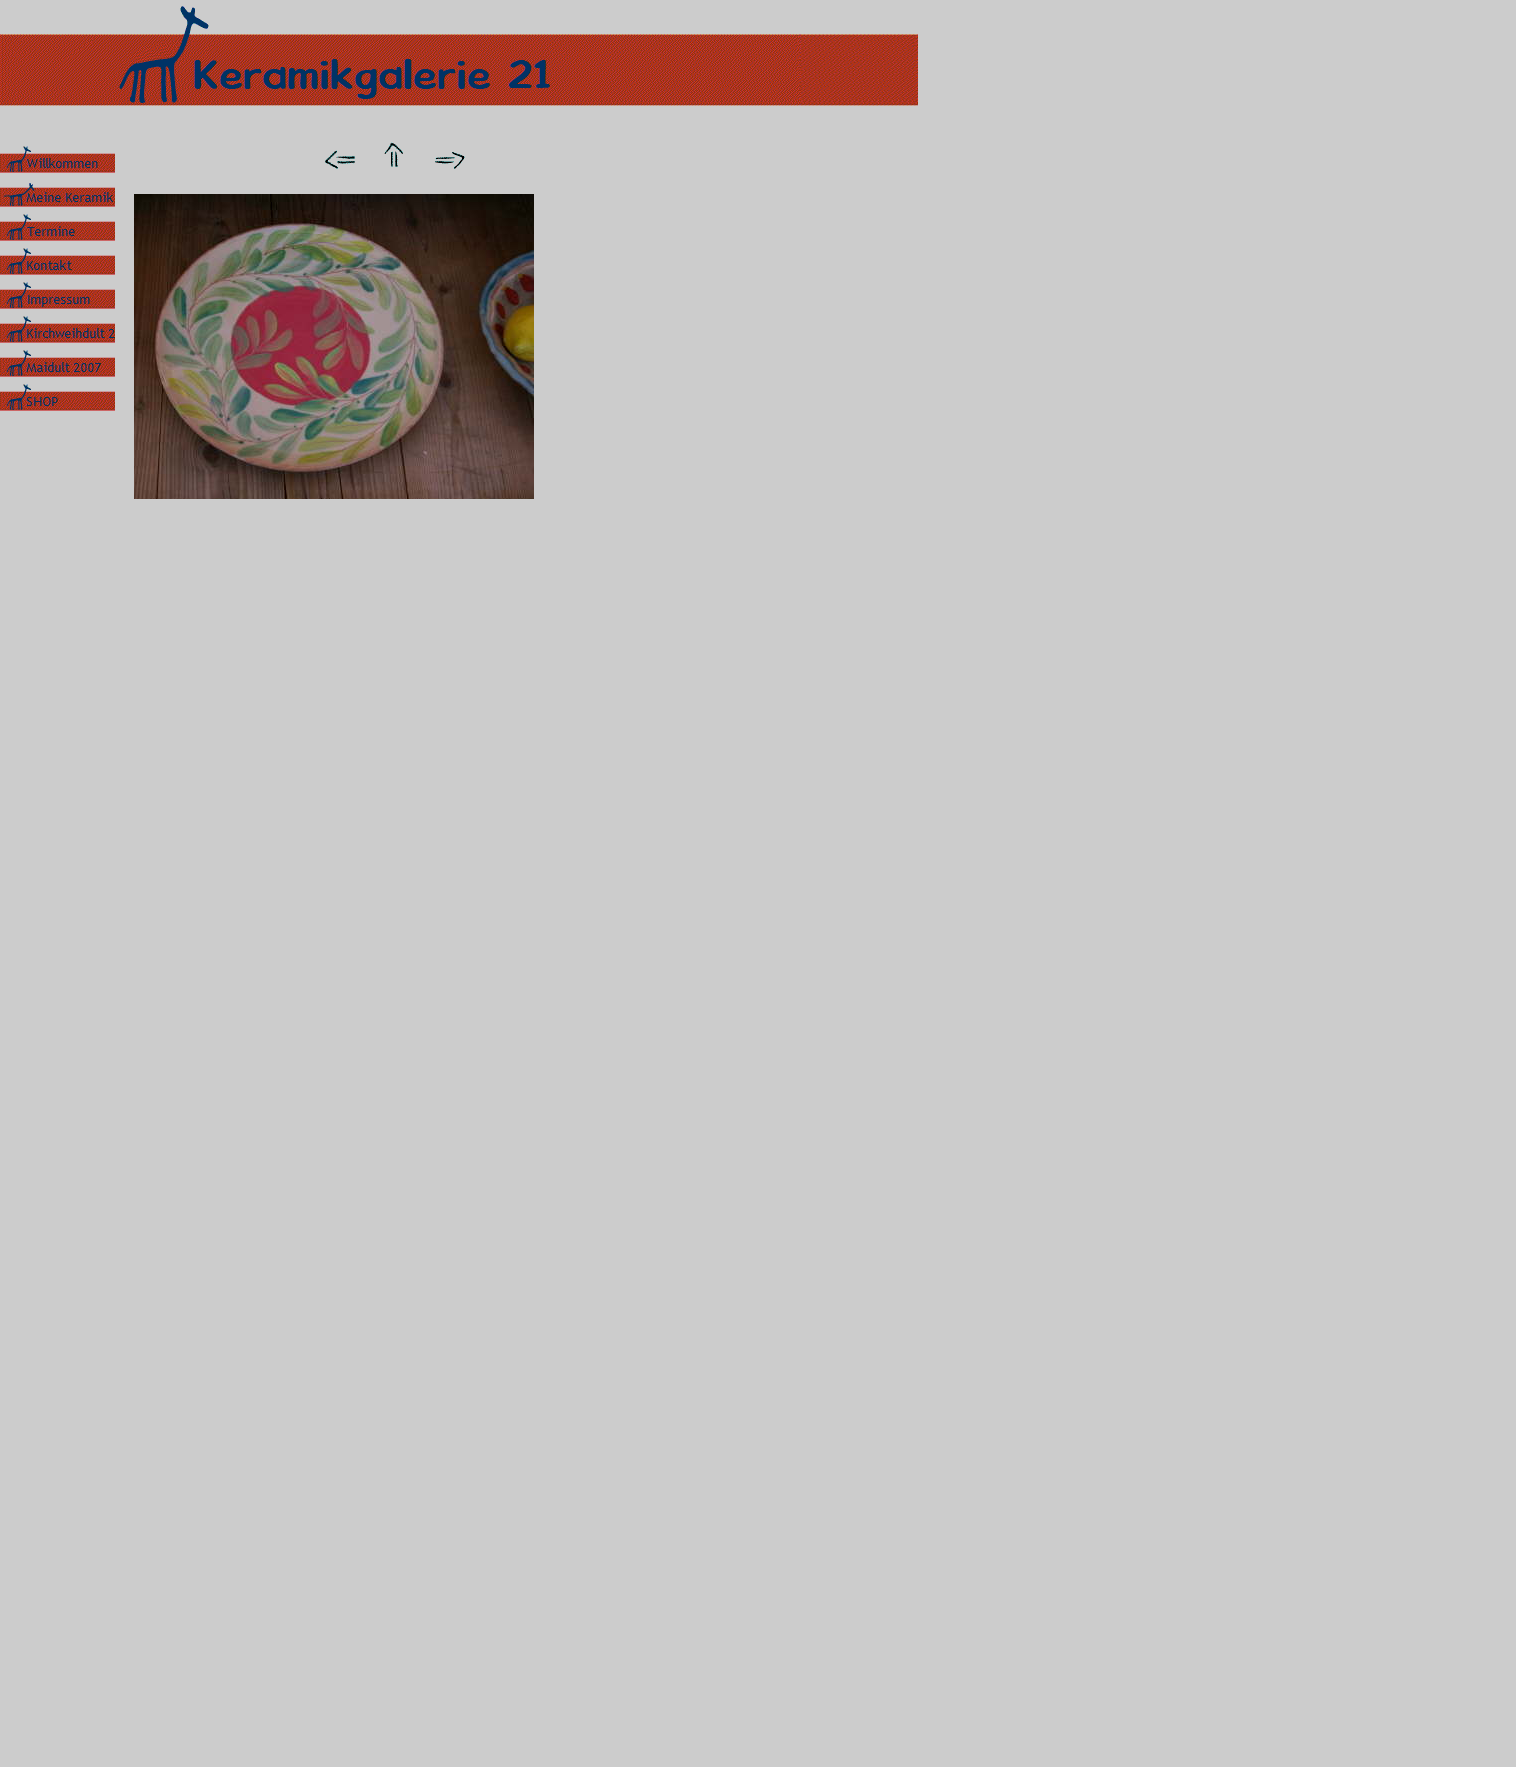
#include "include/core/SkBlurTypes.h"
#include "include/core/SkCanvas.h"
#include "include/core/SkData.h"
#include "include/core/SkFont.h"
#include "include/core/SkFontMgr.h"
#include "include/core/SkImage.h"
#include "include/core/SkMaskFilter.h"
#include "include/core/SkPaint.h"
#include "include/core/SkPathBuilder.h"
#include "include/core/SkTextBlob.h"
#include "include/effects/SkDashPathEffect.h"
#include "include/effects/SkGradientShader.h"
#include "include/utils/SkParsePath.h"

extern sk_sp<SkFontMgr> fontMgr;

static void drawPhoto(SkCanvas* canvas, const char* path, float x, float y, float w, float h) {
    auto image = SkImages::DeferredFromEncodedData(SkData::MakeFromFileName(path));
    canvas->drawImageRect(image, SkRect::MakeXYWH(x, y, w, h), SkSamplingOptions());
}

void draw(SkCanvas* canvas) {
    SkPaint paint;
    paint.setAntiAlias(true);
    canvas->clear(0xFFCCCCCC);
    drawPhoto(canvas, "assets/img1.png", 0, 6, 800, 100);
    drawPhoto(canvas, "assets/img2.png", 800, 34, 118, 72);
    drawPhoto(canvas, "assets/img3.png", 0, 146, 115, 27);
    drawPhoto(canvas, "assets/img4.png", 0, 183, 115, 24);
    drawPhoto(canvas, "assets/img5.png", 0, 214, 115, 27);
    drawPhoto(canvas, "assets/img6.png", 0, 248, 115, 27);
    drawPhoto(canvas, "assets/img7.png", 0, 282, 115, 27);
    drawPhoto(canvas, "assets/img8.png", 0, 316, 115, 27);
    drawPhoto(canvas, "assets/img9.png", 0, 350, 115, 27);
    drawPhoto(canvas, "assets/img10.png", 0, 384, 115, 27);
    drawPhoto(canvas, "assets/img11.png", 384, 142, 19, 25);
    drawPhoto(canvas, "assets/img12.png", 325, 150, 30, 19);
    drawPhoto(canvas, "assets/img13.png", 435, 152, 30, 17);
    drawPhoto(canvas, "assets/img14.png", 134, 194, 400, 305);
}
